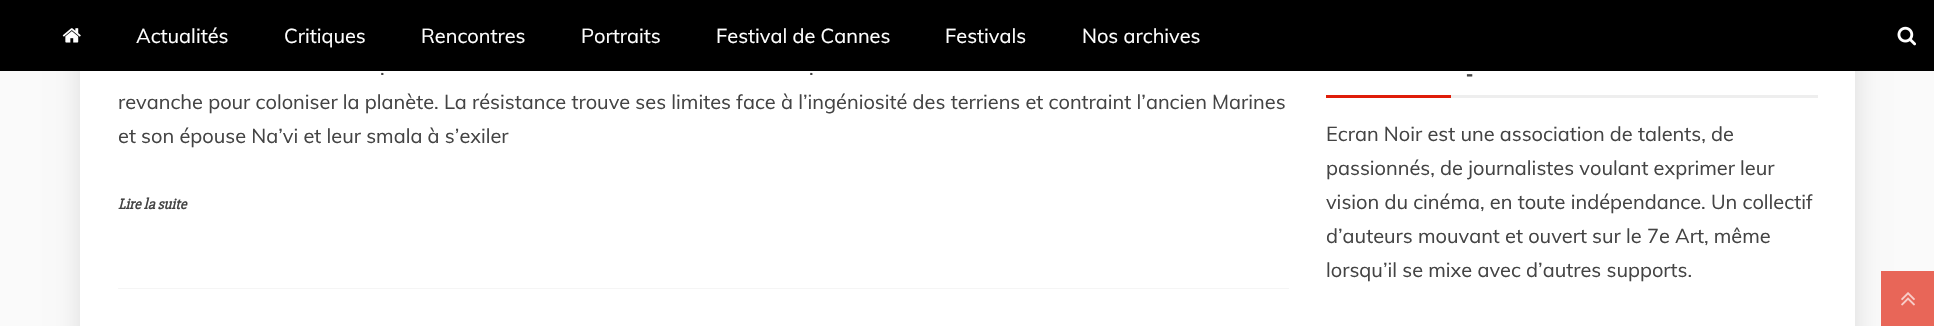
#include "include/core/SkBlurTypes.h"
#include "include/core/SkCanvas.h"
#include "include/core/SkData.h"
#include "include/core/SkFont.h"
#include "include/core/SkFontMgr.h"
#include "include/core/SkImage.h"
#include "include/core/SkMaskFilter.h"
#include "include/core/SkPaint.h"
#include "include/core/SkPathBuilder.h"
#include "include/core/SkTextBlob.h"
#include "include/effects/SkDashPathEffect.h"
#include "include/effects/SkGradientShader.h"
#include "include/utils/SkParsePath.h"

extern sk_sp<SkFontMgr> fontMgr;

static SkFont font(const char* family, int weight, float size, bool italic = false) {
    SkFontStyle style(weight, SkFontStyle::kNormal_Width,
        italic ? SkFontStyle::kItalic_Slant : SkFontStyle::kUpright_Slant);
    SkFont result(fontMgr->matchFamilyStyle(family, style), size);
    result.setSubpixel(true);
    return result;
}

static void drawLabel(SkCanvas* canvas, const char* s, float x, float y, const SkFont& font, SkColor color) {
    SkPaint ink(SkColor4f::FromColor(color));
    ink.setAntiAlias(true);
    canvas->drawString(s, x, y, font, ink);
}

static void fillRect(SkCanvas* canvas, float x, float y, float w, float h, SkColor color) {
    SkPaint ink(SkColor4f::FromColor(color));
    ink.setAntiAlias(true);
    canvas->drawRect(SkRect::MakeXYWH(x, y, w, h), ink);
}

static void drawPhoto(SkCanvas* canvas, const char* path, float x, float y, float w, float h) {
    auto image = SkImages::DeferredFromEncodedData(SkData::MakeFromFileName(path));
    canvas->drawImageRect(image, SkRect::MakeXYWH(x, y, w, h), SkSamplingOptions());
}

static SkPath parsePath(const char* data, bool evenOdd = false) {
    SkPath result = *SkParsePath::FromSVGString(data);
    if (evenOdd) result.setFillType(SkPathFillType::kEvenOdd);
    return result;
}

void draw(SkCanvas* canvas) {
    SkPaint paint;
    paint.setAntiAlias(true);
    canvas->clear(0xFFFAFAFA);
    paint.setColor(0x1A000000);
    paint.setMaskFilter(SkMaskFilter::MakeBlur(kNormal_SkBlurStyle, 12));
    canvas->drawRect(SkRect::MakeXYWH(78, -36, 1780, 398), paint);
    paint.setMaskFilter(nullptr);
    fillRect(canvas, 80, 71, 1775, 255, 0xFFFFFFFF);
    fillRect(canvas, 0, 0, 1934, 71, 0xFF000000);
    drawPhoto(canvas, "assets/img1.png", 62, 28, 19, 15);
    SkFont font1 = font("Muli", 400, 20);
    drawLabel(canvas, "Actualités", 136, 43, font1, 0xFFFFFFFF);
    drawLabel(canvas, "Critiques", 284, 43, font1, 0xFFFFFFFF);
    drawLabel(canvas, "Rencontres", 421, 43, font1, 0xFFFFFFFF);
    drawLabel(canvas, "Portraits", 581, 43, font1, 0xFFFFFFFF);
    drawLabel(canvas, "Festival de Cannes", 716, 43, font1, 0xFFFFFFFF);
    drawLabel(canvas, "Festivals", 945, 43, font1, 0xFFFFFFFF);
    drawLabel(canvas, "Nos archives", 1082, 43, font1, 0xFFFFFFFF);
    drawPhoto(canvas, "assets/img2.png", 1897, 26, 19, 20);
    paint.setColor(0xFFF5F5F5);
    canvas->drawPath(parsePath("M118 288V289H1289V-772V288Z"), paint);
    drawLabel(canvas, ".", 380, 75, font1, 0xFF444444);
    drawLabel(canvas, ".", 809, 75, font1, 0xFF444444);
    drawLabel(canvas, "revanche pour coloniser la planète. La résistance trouve ses limites face à l’ingéniosité des terriens et contraint l’ancien Marines", 118, 109, font1, 0xFF444444);
    drawLabel(canvas, "et son épouse Na’vi et leur smala à s’exiler", 118, 143, font1, 0xFF444444);
    SkFont font2 = font("Slabo 27px", 700, 15, true);
    drawLabel(canvas, "Lire la suite", 118, 209, font2, 0xFF444444);
    fillRect(canvas, 1451, 95, 367, 3, 0xFFEEEEEE);
    SkFont font3 = font("Slabo 27px", 700, 25);
    drawLabel(canvas, "-", 1466, 82, font3, 0xFF444444);
    fillRect(canvas, 1326, 95, 125, 3, 0xFFDF1D09);
    drawLabel(canvas, "Ecran Noir est une association de talents, de", 1326, 141, font1, 0xFF444444);
    drawLabel(canvas, "passionnés, de journalistes voulant exprimer leur", 1326, 175, font1, 0xFF444444);
    drawLabel(canvas, "vision du cinéma, en toute indépendance. Un collectif", 1326, 209, font1, 0xFF444444);
    drawLabel(canvas, "d’auteurs mouvant et ouvert sur le 7e Art, même", 1326, 243, font1, 0xFF444444);
    drawLabel(canvas, "lorsqu’il se mixe avec d’autres supports.", 1326, 277, font1, 0xFF444444);
    fillRect(canvas, 1881, 271, 53, 55, 0xFFE86658);
    drawPhoto(canvas, "assets/img3.png", 1901, 292, 14, 14);
}
